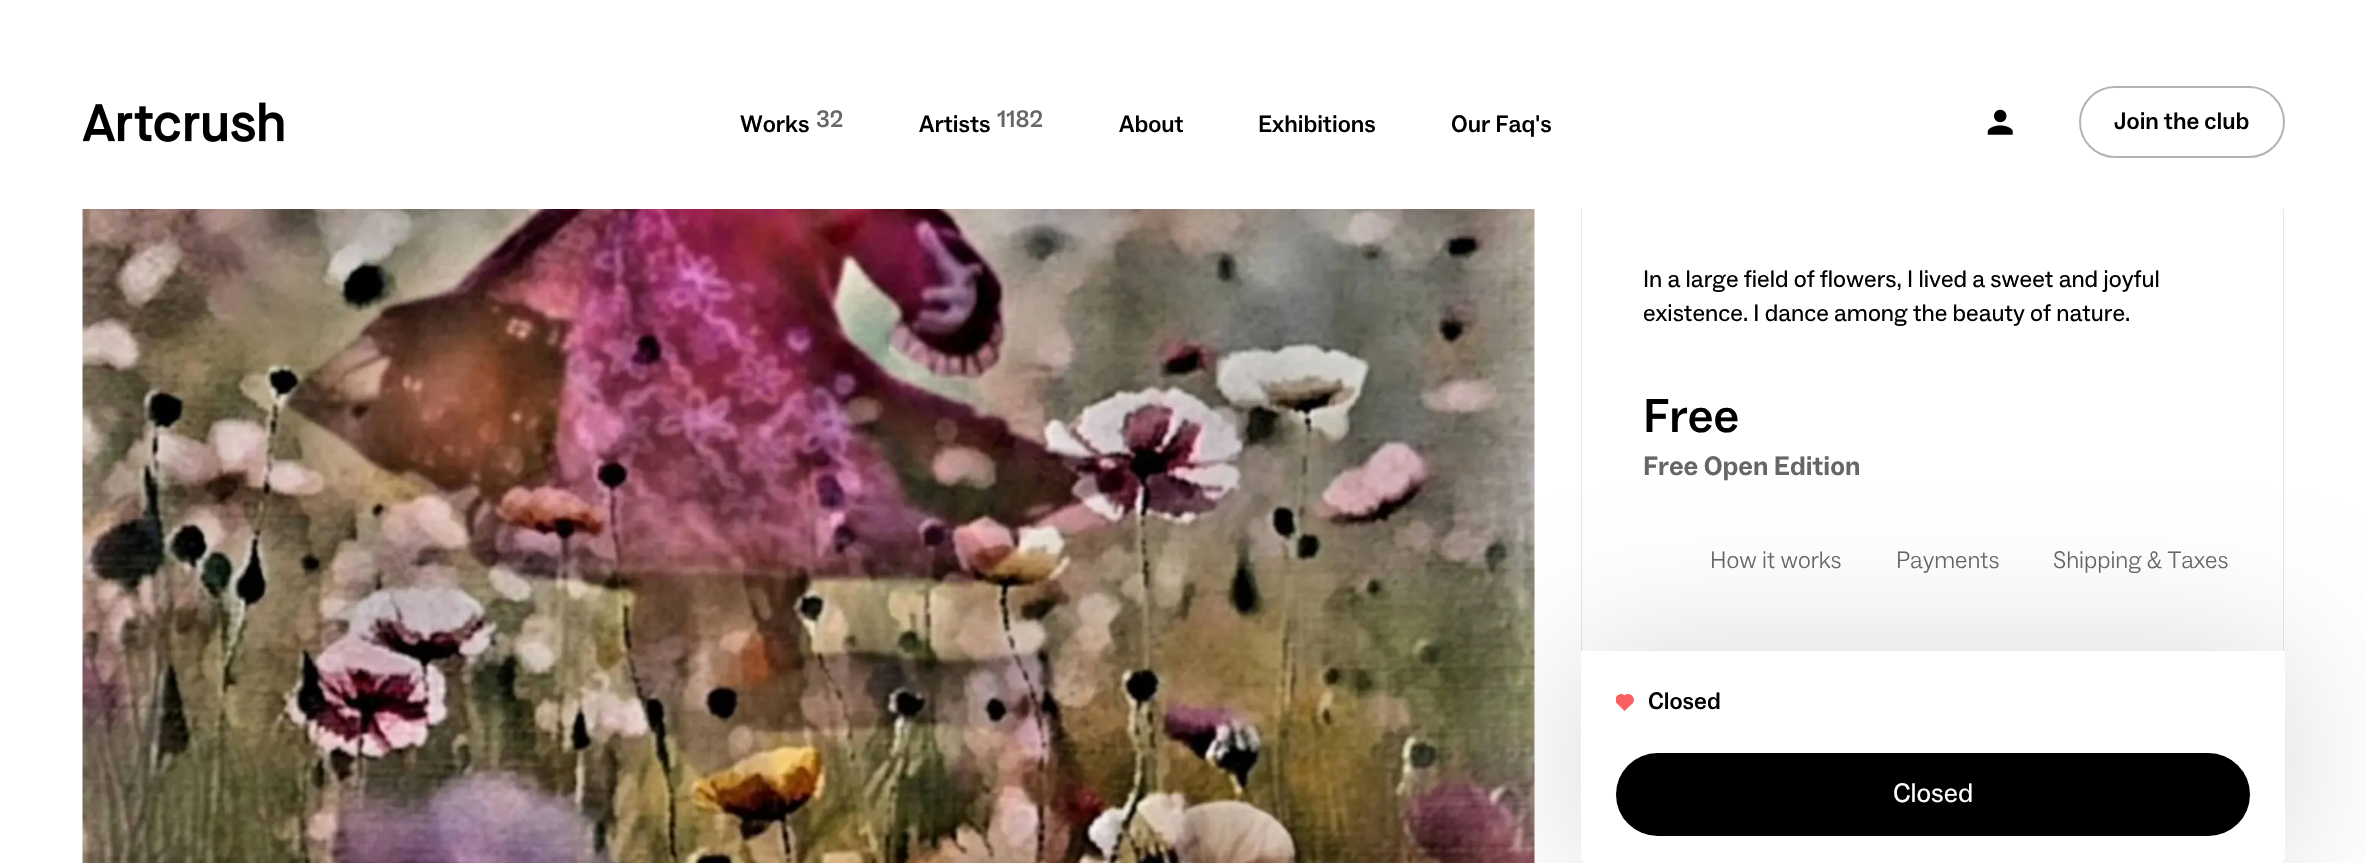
#include "include/core/SkBlurTypes.h"
#include "include/core/SkCanvas.h"
#include "include/core/SkData.h"
#include "include/core/SkFont.h"
#include "include/core/SkFontMgr.h"
#include "include/core/SkImage.h"
#include "include/core/SkMaskFilter.h"
#include "include/core/SkPaint.h"
#include "include/core/SkPathBuilder.h"
#include "include/core/SkTextBlob.h"
#include "include/effects/SkDashPathEffect.h"
#include "include/effects/SkGradientShader.h"
#include "include/utils/SkParsePath.h"

extern sk_sp<SkFontMgr> fontMgr;

static SkFont font(const char* family, int weight, float size, bool italic = false) {
    SkFontStyle style(weight, SkFontStyle::kNormal_Width,
        italic ? SkFontStyle::kItalic_Slant : SkFontStyle::kUpright_Slant);
    SkFont result(fontMgr->matchFamilyStyle(family, style), size);
    result.setSubpixel(true);
    return result;
}

static void drawLabel(SkCanvas* canvas, const char* s, float x, float y, const SkFont& font, SkColor color) {
    SkPaint ink(SkColor4f::FromColor(color));
    ink.setAntiAlias(true);
    canvas->drawString(s, x, y, font, ink);
}

static void fillRect(SkCanvas* canvas, float x, float y, float w, float h, SkColor color) {
    SkPaint ink(SkColor4f::FromColor(color));
    ink.setAntiAlias(true);
    canvas->drawRect(SkRect::MakeXYWH(x, y, w, h), ink);
}

static void fillRRect(SkCanvas* canvas, float x, float y, float w, float h, float radius, SkColor color) {
    SkPaint ink(SkColor4f::FromColor(color));
    ink.setAntiAlias(true);
    canvas->drawRoundRect(SkRect::MakeXYWH(x, y, w, h), radius, radius, ink);
}

static void drawPhoto(SkCanvas* canvas, const char* path, float x, float y, float w, float h) {
    auto image = SkImages::DeferredFromEncodedData(SkData::MakeFromFileName(path));
    canvas->drawImageRect(image, SkRect::MakeXYWH(x, y, w, h), SkSamplingOptions());
}

static SkPath parsePath(const char* data, bool evenOdd = false) {
    SkPath result = *SkParsePath::FromSVGString(data);
    if (evenOdd) result.setFillType(SkPathFillType::kEvenOdd);
    return result;
}

void draw(SkCanvas* canvas) {
    SkPaint paint;
    paint.setAntiAlias(true);
    canvas->clear(0xFFFFFFFF);
    paint.setColor(0xFFE6E6E6);
    canvas->drawPath(parsePath("M1596 0H2270C2278 0 2284 7 2284 15V651H1581V15C1581 7 1588 0 1596 0ZM1596 2H2270C2277 2 2283 8 2283 15V651H1582V15C1582 8 1589 2 1596 2Z", true), paint);
    fillRect(canvas, 1581, 0, 703, 209, 0xFFFFFFFF);
    drawPhoto(canvas, "assets/img1.png", 83, 102, 201, 40);
    SkFont font1 = font("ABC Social", 500, 24);
    drawLabel(canvas, "Works", 740, 132, font1, 0xFF000000);
    drawLabel(canvas, "32", 816, 127, font1, 0xFF666666);
    drawLabel(canvas, "Artists", 919, 132, font1, 0xFF000000);
    drawLabel(canvas, "1182", 997, 127, font1, 0xFF666666);
    drawLabel(canvas, "About", 1119, 132, font1, 0xFF000000);
    drawLabel(canvas, "Exhibitions", 1258, 132, font1, 0xFF000000);
    drawLabel(canvas, "Our Faq's", 1451, 132, font1, 0xFF000000);
    drawPhoto(canvas, "assets/img2.png", 1987, 109, 26, 26);
    paint.setStroke(true);
    paint.setStrokeWidth(2);
    paint.setColor(0xFFB3B3B3);
    canvas->drawRoundRect(SkRect::MakeXYWH(2080, 87, 204, 70), 35, 35, paint);
    drawLabel(canvas, "Join the club", 2114, 129, font1, 0xFF000000);
    drawPhoto(canvas, "assets/img3.png", 82, 209, 1453, 654);
    SkFont font2 = font("ABC Social", 400, 24);
    drawLabel(canvas, "In a large field of flowers, I lived a sweet and joyful", 1643, 287, font2, 0xFF000000);
    drawLabel(canvas, "existence. I dance among the beauty of nature.", 1643, 321, font2, 0xFF000000);
    SkFont font3 = font("ABC Social", 500, 48);
    drawLabel(canvas, "Free", 1643, 432, font3, 0xFF000000);
    paint.setStroke(false);
    paint.setColor(0x26000000);
    paint.setMaskFilter(SkMaskFilter::MakeBlur(kNormal_SkBlurStyle, 70.5f));
    canvas->drawRoundRect(SkRect::MakeXYWH(1581, 651, 704, 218), 15, 15, paint);
    paint.setMaskFilter(nullptr);
    SkFont font4 = font("ABC Social", 700, 27);
    drawLabel(canvas, "Free Open Edition", 1643, 475, font4, 0xFF666666);
    SkFont font5 = font("ABC Social", 300, 24);
    drawLabel(canvas, "How it works", 1710, 568, font5, 0xFF666666);
    drawLabel(canvas, "Payments", 1896, 568, font5, 0xFF666666);
    drawLabel(canvas, "Shipping & Taxes", 2053, 568, font5, 0xFF666666);
    paint.setColor(0xFFFFFFFF);
    canvas->drawPath(parsePath("M1581 651H2285V854C2285 862.5 2278.5 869 2270 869H1596C1587.5 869 1581 862.5 1581 854Z"), paint);
    canvas->save();
    canvas->clipRect(SkRect::MakeXYWH(1616, 693, 19, 20));
    paint.setColor(0xFFFA6060);
    canvas->drawPath(parsePath("M1624.5 711L1617 703.5C1612 698.5 1619.5 691 1624.5 695.5C1630 691 1637 698.5 1632.5 703.5Z"), paint);
    canvas->restore();
    drawLabel(canvas, "Closed", 1648, 709, font1, 0xFF000000);
    fillRRect(canvas, 1616, 753, 634, 83, 41.5f, 0xFF000000);
    SkFont font6 = font("ABC Social", 400, 27);
    drawLabel(canvas, "Closed", 1893, 802, font6, 0xFFFFFFFF);
}
